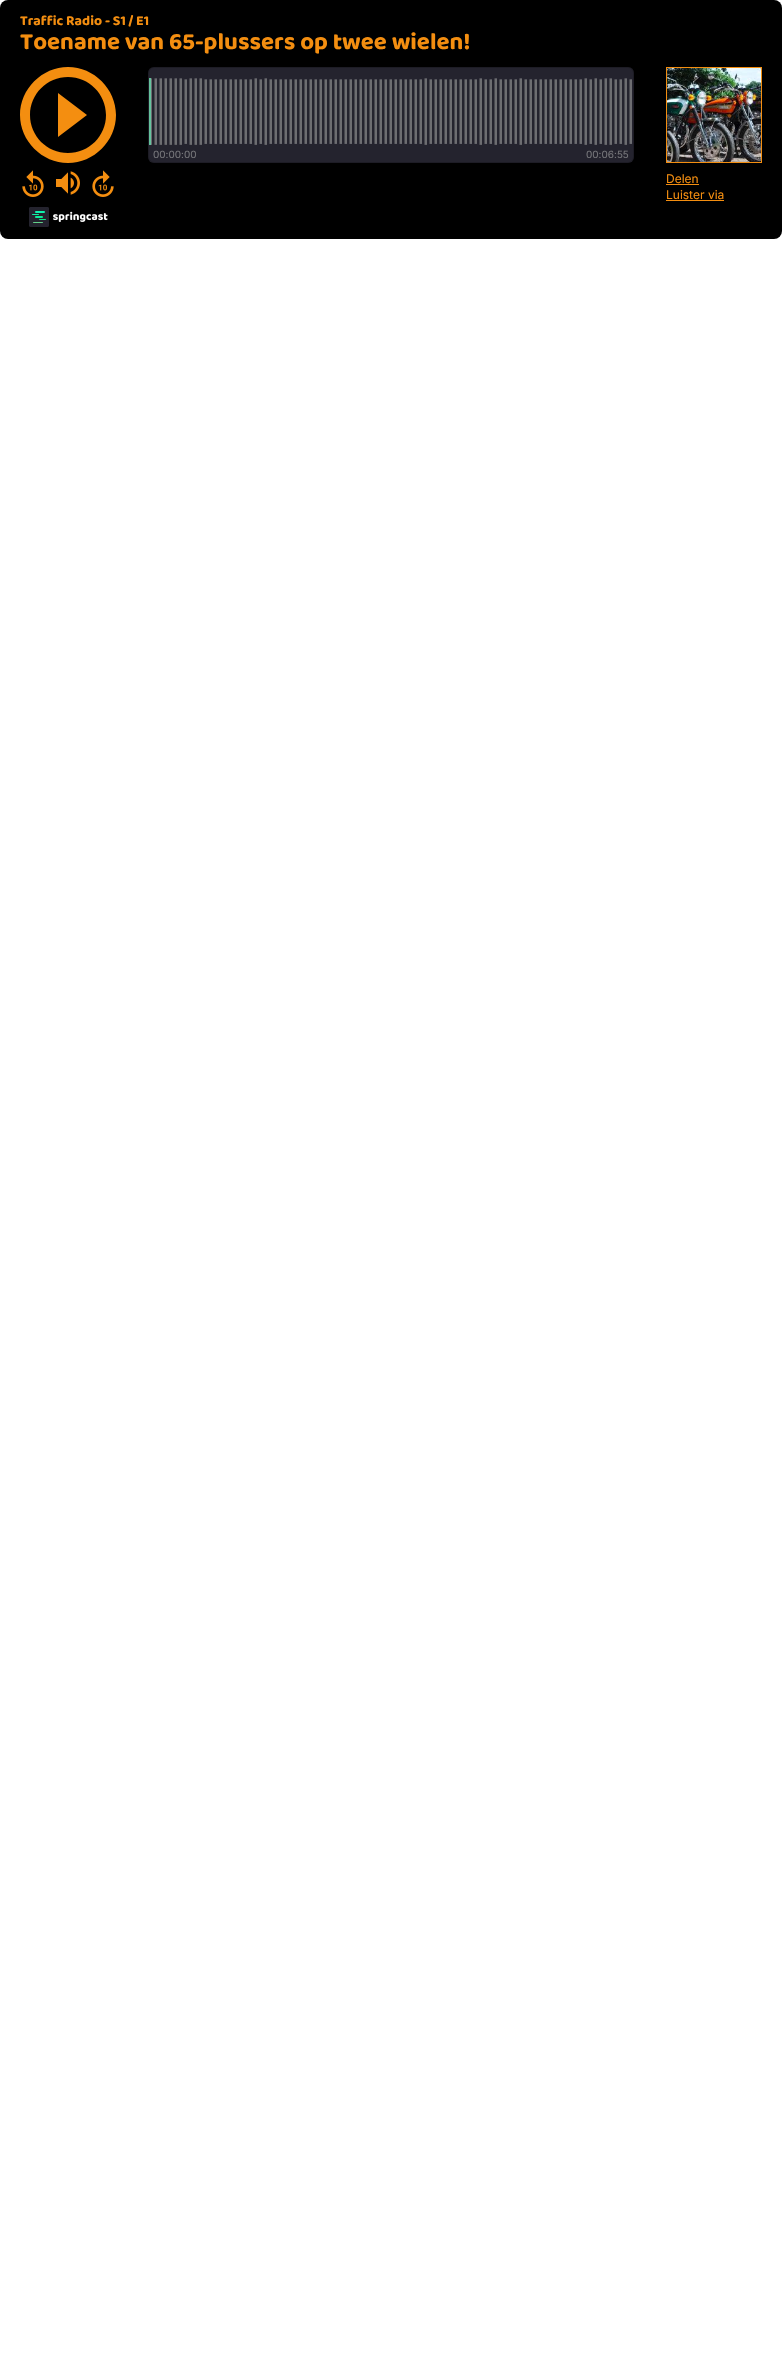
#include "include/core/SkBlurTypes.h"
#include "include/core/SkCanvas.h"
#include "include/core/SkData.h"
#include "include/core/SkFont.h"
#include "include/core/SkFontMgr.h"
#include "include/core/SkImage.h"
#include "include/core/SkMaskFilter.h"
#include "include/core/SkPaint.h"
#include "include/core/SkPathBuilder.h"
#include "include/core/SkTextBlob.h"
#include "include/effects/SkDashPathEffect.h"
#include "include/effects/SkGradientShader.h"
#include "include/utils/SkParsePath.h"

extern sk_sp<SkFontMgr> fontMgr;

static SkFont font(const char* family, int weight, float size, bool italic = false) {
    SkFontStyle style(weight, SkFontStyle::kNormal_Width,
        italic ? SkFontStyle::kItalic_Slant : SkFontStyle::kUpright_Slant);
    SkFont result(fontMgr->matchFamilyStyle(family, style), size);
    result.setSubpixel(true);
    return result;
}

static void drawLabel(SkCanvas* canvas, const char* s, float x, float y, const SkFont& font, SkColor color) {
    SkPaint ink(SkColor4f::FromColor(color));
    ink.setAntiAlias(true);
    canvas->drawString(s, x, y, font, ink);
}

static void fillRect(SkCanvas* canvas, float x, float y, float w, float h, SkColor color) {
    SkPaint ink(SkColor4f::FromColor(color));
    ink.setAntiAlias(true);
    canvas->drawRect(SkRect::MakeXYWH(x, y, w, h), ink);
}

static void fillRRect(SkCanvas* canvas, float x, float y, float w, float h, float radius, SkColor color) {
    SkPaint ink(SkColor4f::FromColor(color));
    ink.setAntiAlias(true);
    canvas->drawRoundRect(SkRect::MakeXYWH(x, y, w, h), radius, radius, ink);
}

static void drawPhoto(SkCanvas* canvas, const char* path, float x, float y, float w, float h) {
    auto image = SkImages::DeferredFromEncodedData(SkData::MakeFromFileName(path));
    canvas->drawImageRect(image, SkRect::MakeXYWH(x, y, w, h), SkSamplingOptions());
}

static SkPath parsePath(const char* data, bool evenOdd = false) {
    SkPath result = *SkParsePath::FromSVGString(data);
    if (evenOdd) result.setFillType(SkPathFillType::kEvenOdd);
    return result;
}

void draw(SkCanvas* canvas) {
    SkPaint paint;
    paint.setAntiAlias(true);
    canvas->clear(0xFFFFFFFF);
    fillRRect(canvas, 0, 0, 782, 239, 8, 0xFF000000);
    SkFont font1 = font("Baloo Bhai 2", 700, 14);
    drawLabel(canvas, "Traffic Radio - S1 / E1", 20, 25, font1, 0xFFF48E10);
    SkFont font2 = font("Baloo Bhai 2", 700, 24);
    drawLabel(canvas, "Toename van 65-plussers op twee wielen!", 20, 49, font2, 0xFFF48E10);
    paint.setColor(0xFFF48E10);
    canvas->drawPath(parsePath("M58 137L87 115L58 93ZM68 67C42 67 20 89 20 115C20 141 42 163 68 163C94 163 116 141 116 115C116 89 94 67 68 67ZM68 153C47 153 30 136 30 115C30 94 47 77 68 77C89 77 106 94 106 115C106 136 89 153 68 153Z"), paint);
    drawPhoto(canvas, "assets/img1.png", 22, 170, 22, 27);
    drawPhoto(canvas, "assets/img2.png", 56, 171, 24, 24);
    drawPhoto(canvas, "assets/img3.png", 92, 170, 22, 27);
    drawPhoto(canvas, "assets/img4.png", 29, 207, 79, 20);
    fillRRect(canvas, 148, 67, 486, 96, 6, 0xFF24232E);
    paint.setStroke(true);
    paint.setStrokeWidth(1);
    paint.setColor(0x33000000);
    canvas->drawRoundRect(SkRect::MakeXYWH(148.5f, 67.5f, 485, 95), 5.5f, 5.5f, paint);
    drawPhoto(canvas, "assets/img5.png", 149, 78, 483, 67);
    fillRect(canvas, 149, 78, 2, 67, 0xE666CDA3);
    SkFont font3 = font("Inter", 400, 10);
    drawLabel(canvas, "00:00:00", 153, 158, font3, 0xFF757579);
    drawLabel(canvas, "00:06:55", 586, 158, font3, 0xFF757579);
    paint.setColor(0xFFF48E10);
    canvas->drawRect(SkRect::MakeXYWH(666.5f, 67.5f, 95, 95), paint);
    drawPhoto(canvas, "assets/img6.png", 667, 68, 94, 94);
    SkFont font4 = font("Inter", 400, 12);
    drawLabel(canvas, "Delen", 666, 183, font4, 0xFFF48E10);
    fillRect(canvas, 666, 184, 33, 1, 0xFFF48E10);
    drawLabel(canvas, "Luister via", 666, 199, font4, 0xFFF48E10);
    fillRect(canvas, 666, 200, 58, 1, 0xFFF48E10);
}
